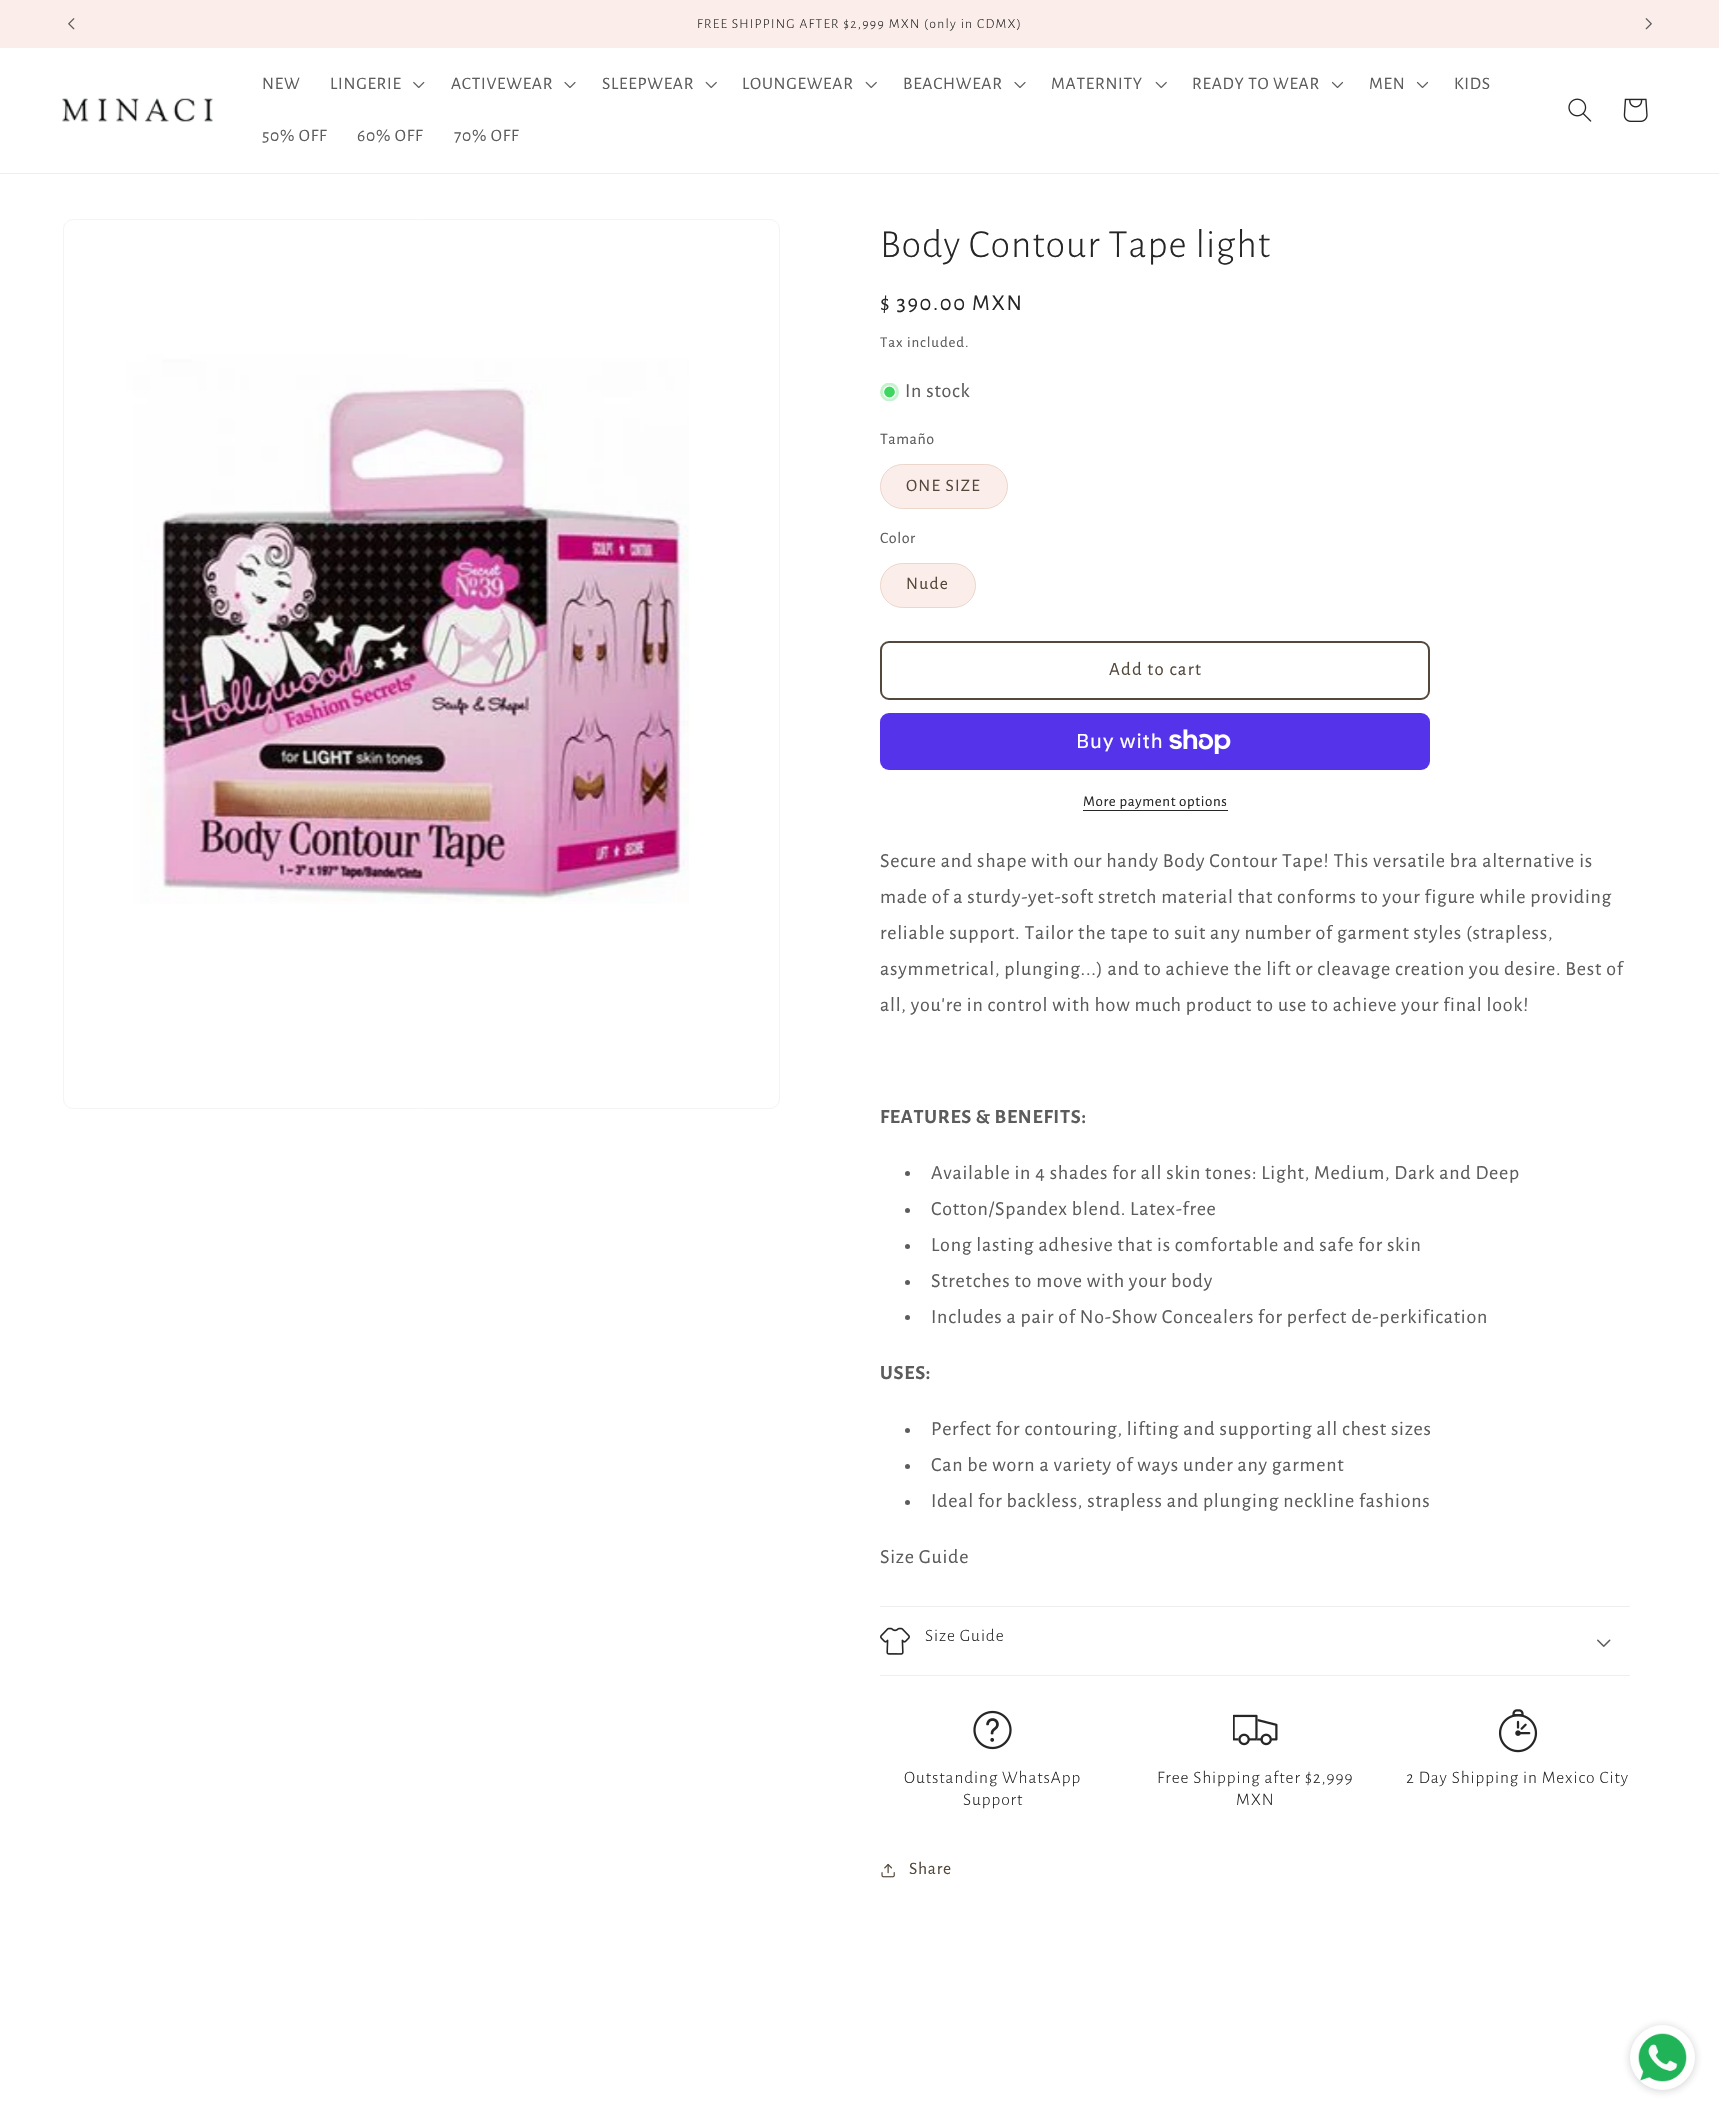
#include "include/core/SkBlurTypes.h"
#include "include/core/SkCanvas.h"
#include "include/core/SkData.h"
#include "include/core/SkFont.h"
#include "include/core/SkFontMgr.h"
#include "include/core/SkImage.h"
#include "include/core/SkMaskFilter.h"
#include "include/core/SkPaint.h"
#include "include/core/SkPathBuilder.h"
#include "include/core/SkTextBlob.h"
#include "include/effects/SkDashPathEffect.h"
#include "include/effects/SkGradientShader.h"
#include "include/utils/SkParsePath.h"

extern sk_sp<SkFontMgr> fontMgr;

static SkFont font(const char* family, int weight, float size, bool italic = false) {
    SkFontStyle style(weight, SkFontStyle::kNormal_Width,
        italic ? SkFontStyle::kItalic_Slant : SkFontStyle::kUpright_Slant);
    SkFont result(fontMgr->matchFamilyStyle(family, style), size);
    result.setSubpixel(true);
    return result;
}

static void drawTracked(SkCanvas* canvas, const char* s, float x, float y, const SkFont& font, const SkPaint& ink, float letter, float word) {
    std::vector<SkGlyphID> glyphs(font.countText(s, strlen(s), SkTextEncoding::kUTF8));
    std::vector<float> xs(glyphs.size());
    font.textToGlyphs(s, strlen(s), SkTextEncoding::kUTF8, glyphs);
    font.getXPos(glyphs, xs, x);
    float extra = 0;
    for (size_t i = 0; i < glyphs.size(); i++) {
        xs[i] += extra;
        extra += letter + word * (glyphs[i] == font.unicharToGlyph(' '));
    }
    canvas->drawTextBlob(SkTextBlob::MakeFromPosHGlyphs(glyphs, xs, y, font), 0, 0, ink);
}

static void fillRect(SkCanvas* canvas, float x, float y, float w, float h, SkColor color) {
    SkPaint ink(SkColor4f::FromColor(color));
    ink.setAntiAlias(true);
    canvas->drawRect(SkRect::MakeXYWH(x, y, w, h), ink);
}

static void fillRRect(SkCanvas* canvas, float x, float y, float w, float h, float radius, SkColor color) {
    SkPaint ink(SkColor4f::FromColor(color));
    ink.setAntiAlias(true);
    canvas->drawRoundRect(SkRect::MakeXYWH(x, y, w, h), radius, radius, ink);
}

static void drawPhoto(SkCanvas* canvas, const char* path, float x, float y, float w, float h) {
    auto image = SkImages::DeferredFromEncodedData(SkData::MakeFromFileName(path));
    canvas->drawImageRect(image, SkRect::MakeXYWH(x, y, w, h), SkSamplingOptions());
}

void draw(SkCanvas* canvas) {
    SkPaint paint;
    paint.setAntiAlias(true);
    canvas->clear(0xFFFFFFFF);
    fillRect(canvas, 0, 0, 1719, 48, 0xFFFBEEEA);
    drawPhoto(canvas, "assets/img1.png", 68, 18, 7, 12);
    SkFont font1 = font("Alegreya Sans", 300, 13.75f);
    paint.setColor(0xFF262626);
    drawTracked(canvas, "FREE SHIPPING AFTER $2,999 MXN (only in CDMX)", 697, 28, font1, paint, 1.25f, 0);
    drawPhoto(canvas, "assets/img2.png", 1645, 18, 7, 12);
    fillRect(canvas, 0, 173, 1719, 1, 0xFFEEEEEE);
    drawPhoto(canvas, "assets/img3.png", 62, 98, 151, 24);
    SkFont font2 = font("Alegreya Sans", 400, 17.5f);
    paint.setColor(0xFF5C5C5C);
    drawTracked(canvas, "NEW", 262, 89, font2, paint, 0.75f, 0);
    drawTracked(canvas, "LINGERIE", 330, 89, font2, paint, 0.75f, 0);
    drawPhoto(canvas, "assets/img4.png", 413, 81, 12, 8);
    drawTracked(canvas, "ACTIVEWEAR", 451, 89, font2, paint, 0.75f, 0);
    drawPhoto(canvas, "assets/img5.png", 564, 82, 12, 6);
    drawTracked(canvas, "SLEEPWEAR", 602, 89, font2, paint, 0.75f, 0);
    drawPhoto(canvas, "assets/img6.png", 705, 81, 12, 8);
    drawTracked(canvas, "LOUNGEWEAR", 742, 89, font2, paint, 0.75f, 0);
    drawPhoto(canvas, "assets/img6.png", 865, 81, 12, 8);
    drawTracked(canvas, "BEACHWEAR", 903, 89, font2, paint, 0.75f, 0);
    drawPhoto(canvas, "assets/img5.png", 1014, 82, 12, 6);
    drawTracked(canvas, "MATERNITY", 1051, 89, font2, paint, 0.75f, 0);
    drawPhoto(canvas, "assets/img6.png", 1155, 81, 12, 8);
    drawTracked(canvas, "READY TO WEAR", 1192, 89, font2, paint, 0.75f, 0);
    drawPhoto(canvas, "assets/img7.png", 1331, 81, 13, 8);
    drawTracked(canvas, "MEN", 1369, 89, font2, paint, 0.75f, 0);
    drawPhoto(canvas, "assets/img7.png", 1416, 81, 13, 8);
    drawTracked(canvas, "KIDS", 1454, 89, font2, paint, 0.75f, 0);
    drawTracked(canvas, "50% OFF", 262, 141, font2, paint, 0.75f, 0);
    drawTracked(canvas, "60% OFF", 357, 141, font2, paint, 0.75f, 0);
    drawTracked(canvas, "70% OFF", 454, 141, font2, paint, 0.75f, 0);
    drawPhoto(canvas, "assets/img8.png", 1568, 98, 24, 24);
    drawPhoto(canvas, "assets/img9.png", 1623, 98, 25, 24);
    paint.setStroke(true);
    paint.setStrokeWidth(1);
    paint.setColor(0xFFF4F4F4);
    canvas->drawRoundRect(SkRect::MakeXYWH(63.5f, 219.5f, 716, 889), 9.5f, 9.5f, paint);
    drawPhoto(canvas, "assets/img10.png", 66, 222, 623, 682);
    SkFont font3 = font("Alegreya Sans", 300, 40);
    paint.setStroke(false);
    paint.setColor(0xFF262626);
    drawTracked(canvas, "Body Contour Tape light", 880, 257, font3, paint, 0.9f, 0);
    SkFont font4 = font("Alegreya Sans", 400, 22.5f);
    drawTracked(canvas, "$ 390.00 MXN", 880, 310, font4, paint, 1.6f, 0);
    SkFont font5 = font("Alegreya Sans", 400, 15);
    paint.setColor(0xFF5C5C5C);
    drawTracked(canvas, "Tax included.", 880, 347, font5, paint, 0.9f, 0);
    canvas->save();
    canvas->clipRect(SkRect::MakeXYWH(880, 383, 19, 18));
    paint.setColor(0xFFC5F3CF);
    canvas->drawCircle(889.5f, 392, 9.5f, paint);
    canvas->restore();
    paint.setColor(0xFF3ED660);
    canvas->drawCircle(889.5f, 392, 6, paint);
    paint.setStroke(true);
    paint.setStrokeWidth(1.2f);
    paint.setColor(0xFFFFFFFF);
    canvas->drawCircle(889.5f, 392, 6, paint);
    SkFont font6 = font("Alegreya Sans", 400, 20);
    paint.setStroke(false);
    paint.setColor(0xFF5C5C5C);
    drawTracked(canvas, "In stock", 905, 397, font6, paint, 0.75f, 0);
    SkFont font7 = font("Alegreya Sans", 400, 16);
    drawTracked(canvas, "Tamaño", 880, 444, font7, paint, 0.5f, 0);
    paint.setColor(0xFFFBEEEA);
    canvas->drawRoundRect(SkRect::MakeXYWH(880.5f, 464.5f, 127, 44), 22, 22, paint);
    paint.setStroke(true);
    paint.setStrokeWidth(1);
    paint.setColor(0xFFECD6CB);
    canvas->drawRoundRect(SkRect::MakeXYWH(880.5f, 464.5f, 127, 44), 22, 22, paint);
    paint.setStroke(false);
    paint.setColor(0xFF54483C);
    drawTracked(canvas, "ONE SIZE", 906, 491, font2, paint, 1.25f, 0);
    paint.setColor(0xFF5C5C5C);
    drawTracked(canvas, "Color", 880, 543, font7, paint, 0.5f, 0);
    paint.setColor(0xFFFBEEEA);
    canvas->drawRoundRect(SkRect::MakeXYWH(880.5f, 563.5f, 95, 44), 22, 22, paint);
    paint.setStroke(true);
    paint.setColor(0xFFECD6CB);
    canvas->drawRoundRect(SkRect::MakeXYWH(880.5f, 563.5f, 95, 44), 22, 22, paint);
    paint.setStroke(false);
    paint.setColor(0xFF54483C);
    drawTracked(canvas, "Nude", 906, 589, font2, paint, 1.25f, 0);
    paint.setStroke(true);
    paint.setStrokeWidth(2);
    canvas->drawRoundRect(SkRect::MakeXYWH(881, 642, 548, 57), 8, 8, paint);
    SkFont font8 = font("Alegreya Sans", 400, 18.75f);
    paint.setStroke(false);
    drawTracked(canvas, "Add to cart", 1109, 675, font8, paint, 1.25f, 0);
    fillRRect(canvas, 880, 713, 550, 57, 9, 0xFF5433EB);
    SkFont font9 = font("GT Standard", 400, 20);
    paint.setColor(0xFFFFFFFF);
    drawTracked(canvas, "Buy with", 1076, 748, font9, paint, 0.75f, 0);
    drawPhoto(canvas, "assets/img11.png", 1169, 729, 62, 25);
    paint.setColor(0xFF262626);
    drawTracked(canvas, "More payment options", 1083, 806, font5, paint, 0.6f, 0);
    fillRect(canvas, 1083, 810, 145, 1, 0xFF262626);
    paint.setColor(0xFF5C5C5C);
    drawTracked(canvas, "Secure and shape with our handy Body Contour Tape! This versatile bra alternative is", 880, 867, font6, paint, 0.75f, 0);
    drawTracked(canvas, "made of a sturdy-yet-soft stretch material that conforms to your figure while providing", 880, 903, font6, paint, 0.75f, 0);
    drawTracked(canvas, "reliable support. Tailor the tape to suit any number of garment styles (strapless,", 880, 939, font6, paint, 0.75f, 0);
    drawTracked(canvas, "asymmetrical, plunging...) and to achieve the lift or cleavage creation you desire. Best of", 880, 975, font6, paint, 0.75f, 0);
    drawTracked(canvas, "all, you're in control with how much product to use to achieve your final look!", 880, 1011, font6, paint, 0.75f, 0);
    SkFont font10 = font("Alegreya Sans", 700, 20);
    drawTracked(canvas, "FEATURES & BENEFITS:", 880, 1123, font10, paint, 0.75f, 0);
    canvas->drawCircle(907.5f, 1173.5f, 2.5f, paint);
    drawTracked(canvas, "Available in 4 shades for all skin tones: Light, Medium, Dark and Deep", 931, 1179, font6, paint, 0.75f, 0);
    canvas->drawCircle(907.5f, 1210.5f, 2.5f, paint);
    drawTracked(canvas, "Cotton/Spandex blend. Latex-free", 931, 1215, font6, paint, 0.75f, 0);
    canvas->drawCircle(907.5f, 1246.5f, 2.5f, paint);
    drawTracked(canvas, "Long lasting adhesive that is comfortable and safe for skin", 931, 1251, font6, paint, 0.75f, 0);
    canvas->drawCircle(907.5f, 1282.5f, 2.5f, paint);
    drawTracked(canvas, "Stretches to move with your body", 931, 1287, font6, paint, 0.75f, 0);
    canvas->drawCircle(907.5f, 1317.5f, 2.5f, paint);
    drawTracked(canvas, "Includes a pair of No-Show Concealers for perfect de-perkification", 931, 1323, font6, paint, 0.75f, 0);
    drawTracked(canvas, "USES:", 880, 1379, font10, paint, 0.75f, 0);
    canvas->drawCircle(907.5f, 1430.5f, 2.5f, paint);
    drawTracked(canvas, "Perfect for contouring, lifting and supporting all chest sizes", 931, 1435, font6, paint, 0.75f, 0);
    canvas->drawCircle(907.5f, 1466.5f, 2.5f, paint);
    drawTracked(canvas, "Can be worn a variety of ways under any garment", 931, 1471, font6, paint, 0.75f, 0);
    canvas->drawCircle(907.5f, 1502.5f, 2.5f, paint);
    drawTracked(canvas, "Ideal for backless, strapless and plunging neckline fashions", 931, 1507, font6, paint, 0.75f, 0);
    drawTracked(canvas, "Size Guide", 880, 1563, font6, paint, 0.75f, 0);
    fillRect(canvas, 880, 1606, 750, 1, 0xFFEEEEEE);
    fillRect(canvas, 880, 1675, 750, 1, 0xFFEEEEEE);
    drawPhoto(canvas, "assets/img12.png", 880, 1627, 30, 28);
    SkFont font11 = font("Alegreya Sans", 300, 17.5f);
    paint.setColor(0xFF262626);
    drawTracked(canvas, "Size Guide", 925, 1641, font11, paint, 0.9f, 0);
    drawPhoto(canvas, "assets/img13.png", 1597, 1639, 14, 8);
    drawPhoto(canvas, "assets/img14.png", 973, 1710, 39, 40);
    drawTracked(canvas, "Outstanding WhatsApp", 904, 1783, font11, paint, 0.9f, 0);
    drawTracked(canvas, "Support", 963, 1805, font11, paint, 0.9f, 0);
    drawPhoto(canvas, "assets/img15.png", 1233, 1714, 45, 32);
    drawTracked(canvas, "Free Shipping after $2,999", 1157, 1783, font11, paint, 0.9f, 0);
    drawTracked(canvas, "MXN", 1236, 1805, font11, paint, 0.9f, 0);
    drawPhoto(canvas, "assets/img16.png", 1498, 1709, 40, 44);
    drawTracked(canvas, "2 Day Shipping in Mexico City", 1406, 1783, font11, paint, 0.9f, 0);
    drawPhoto(canvas, "assets/img17.png", 881, 1863, 14, 15);
    paint.setColor(0xFF54483C);
    drawTracked(canvas, "Share", 909, 1874, font2, paint, 0.75f, 0);
    paint.setColor(0x331B1B1B);
    paint.setMaskFilter(SkMaskFilter::MakeBlur(kNormal_SkBlurStyle, 4));
    canvas->drawRoundRect(SkRect::MakeXYWH(1630, 2026, 65, 65), 32.5f, 32.5f, paint);
    paint.setMaskFilter(nullptr);
    paint.setColor(0xFFFFFFFF);
    canvas->drawCircle(1662.5f, 2057.5f, 32, paint);
    paint.setStroke(true);
    paint.setStrokeWidth(1);
    canvas->drawCircle(1662.5f, 2057.5f, 32, paint);
    drawPhoto(canvas, "assets/img18.png", 1638, 2033, 49, 49);
}
